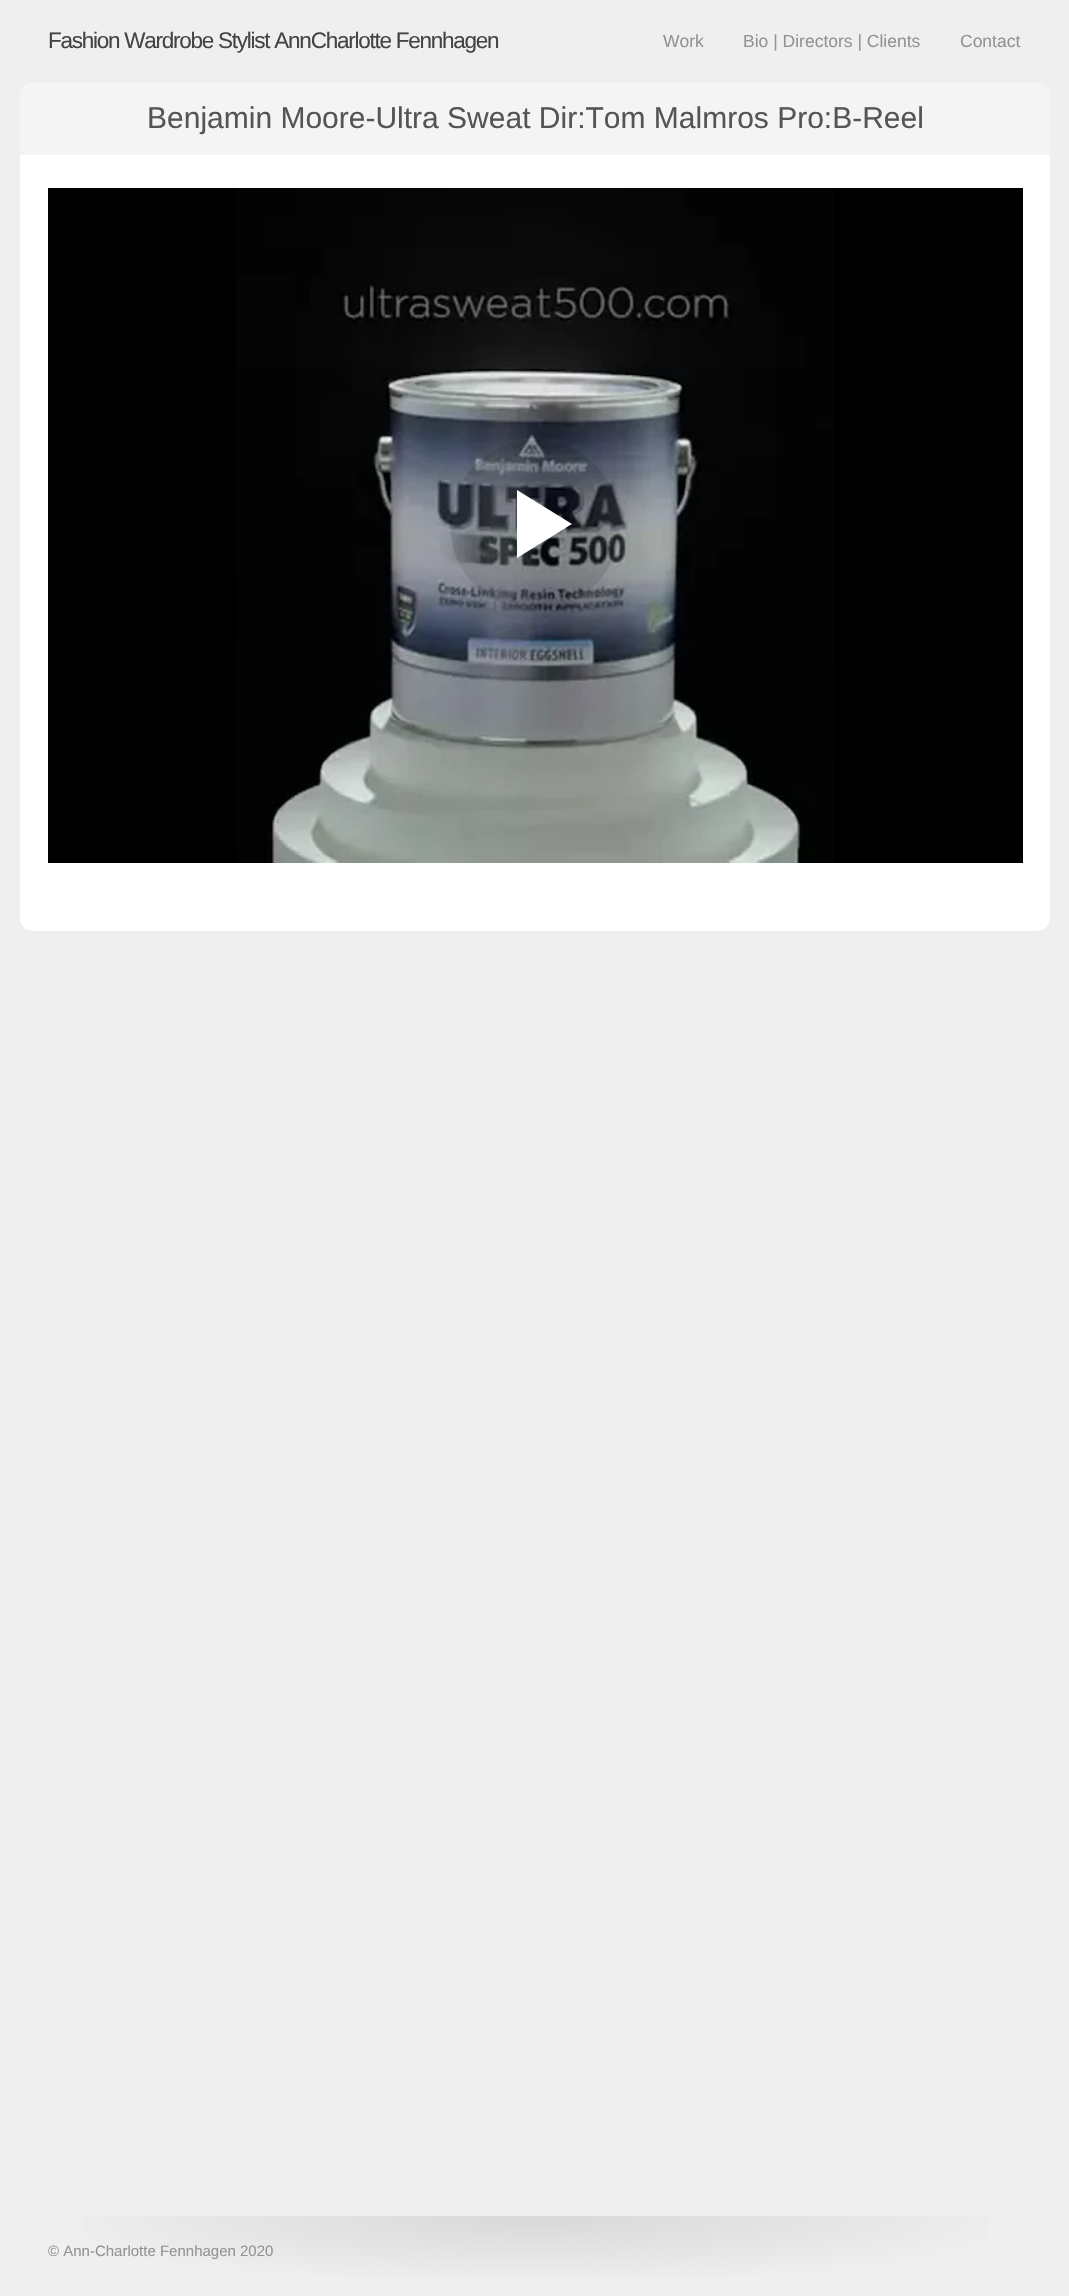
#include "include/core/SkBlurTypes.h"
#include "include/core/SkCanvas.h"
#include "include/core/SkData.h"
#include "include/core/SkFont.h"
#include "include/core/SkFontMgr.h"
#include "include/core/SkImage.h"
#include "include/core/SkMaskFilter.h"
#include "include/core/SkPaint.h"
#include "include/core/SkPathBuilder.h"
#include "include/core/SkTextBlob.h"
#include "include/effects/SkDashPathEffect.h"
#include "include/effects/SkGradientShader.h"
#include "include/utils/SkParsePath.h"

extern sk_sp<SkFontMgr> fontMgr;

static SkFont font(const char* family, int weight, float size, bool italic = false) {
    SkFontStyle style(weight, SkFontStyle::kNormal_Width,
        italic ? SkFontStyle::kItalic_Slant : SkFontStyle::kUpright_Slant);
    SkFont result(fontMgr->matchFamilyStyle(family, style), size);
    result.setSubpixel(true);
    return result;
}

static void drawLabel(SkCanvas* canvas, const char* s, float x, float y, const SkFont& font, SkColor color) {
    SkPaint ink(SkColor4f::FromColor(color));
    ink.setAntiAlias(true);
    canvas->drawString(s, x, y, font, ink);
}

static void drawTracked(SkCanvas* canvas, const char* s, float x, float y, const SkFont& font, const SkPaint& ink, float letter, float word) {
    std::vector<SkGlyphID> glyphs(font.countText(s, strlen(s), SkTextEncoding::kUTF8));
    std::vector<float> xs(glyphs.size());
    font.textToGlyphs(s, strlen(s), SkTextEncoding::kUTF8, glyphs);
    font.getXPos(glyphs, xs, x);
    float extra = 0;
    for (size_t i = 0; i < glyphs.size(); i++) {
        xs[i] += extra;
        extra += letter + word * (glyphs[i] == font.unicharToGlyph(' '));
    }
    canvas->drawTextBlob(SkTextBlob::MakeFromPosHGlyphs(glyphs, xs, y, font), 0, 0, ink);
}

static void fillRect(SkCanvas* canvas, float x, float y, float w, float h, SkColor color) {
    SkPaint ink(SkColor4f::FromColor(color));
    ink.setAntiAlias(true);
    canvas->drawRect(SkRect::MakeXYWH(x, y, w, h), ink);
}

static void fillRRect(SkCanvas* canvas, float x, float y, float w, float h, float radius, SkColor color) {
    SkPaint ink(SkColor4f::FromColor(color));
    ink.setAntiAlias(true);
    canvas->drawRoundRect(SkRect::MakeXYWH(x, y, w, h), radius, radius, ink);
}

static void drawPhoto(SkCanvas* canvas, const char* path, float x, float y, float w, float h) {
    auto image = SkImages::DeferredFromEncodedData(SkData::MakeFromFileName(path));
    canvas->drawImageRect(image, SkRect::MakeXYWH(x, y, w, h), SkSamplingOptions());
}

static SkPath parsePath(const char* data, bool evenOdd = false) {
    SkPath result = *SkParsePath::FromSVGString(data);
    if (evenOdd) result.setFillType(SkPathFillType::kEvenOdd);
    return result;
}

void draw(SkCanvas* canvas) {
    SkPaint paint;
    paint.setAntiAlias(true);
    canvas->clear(0xFFEFEFEF);
    SkFont font1 = font("Liberation Sans", 400, 22.5f);
    paint.setColor(0xFF444444);
    drawTracked(canvas, "Fashion Wardrobe Stylist AnnCharlotte Fennhagen", 48, 48, font1, paint, -1.25f, 0);
    SkFont font2 = font("Liberation Sans", 400, 17.5f);
    drawLabel(canvas, "Work", 663, 47, font2, 0xFF939393);
    drawLabel(canvas, "Bio | Directors | Clients", 743, 47, font2, 0xFF939393);
    drawLabel(canvas, "Contact", 960, 47, font2, 0xFF939393);
    fillRRect(canvas, 20, 83, 1030, 848, 13, 0xFFFFFFFF);
    paint.setColor(0xB3EFEFEF);
    canvas->drawPath(parsePath("M33 83H1037C1044 83 1050 89 1050 96V155H20V96C20 89 26 83 33 83Z"), paint);
    SkFont font3 = font("Liberation Sans", 400, 30);
    drawLabel(canvas, "Benjamin Moore-Ultra Sweat Dir:Tom Malmros Pro:B-Reel", 147, 128, font3, 0xFF555555);
    fillRect(canvas, 48, 188, 975, 675, 0xFF000000);
    drawPhoto(canvas, "assets/img1.png", 236, 188, 598, 675);
    paint.setColor(0x1A000000);
    canvas->drawCircle(535, 525, 85, paint);
    paint.setColor(0xFFFFFFFF);
    canvas->drawPath(parsePath("M572 524L517 558V490Z"), paint);
    {
        const SkColor colors[] = {0xFFD8D8D8, 0xFFEFEFEF};
        const float stops[] = {0, 1};
        SkMatrix m = SkMatrix::Translate(535, 2216).preScale(508, 70);
        paint.setShader(SkGradientShader::MakeRadial({0, 0}, 1, colors, stops, 2, SkTileMode::kClamp, 0, &m));
        paint.setAlpha(255);
    }
    canvas->drawRect(SkRect::MakeXYWH(82, 2216, 906, 62), paint);
    SkFont font4 = font("Liberation Sans", 400, 15);
    drawLabel(canvas, "© Ann-Charlotte Fennhagen 2020", 48, 2256, font4, 0xFF939393);
}
